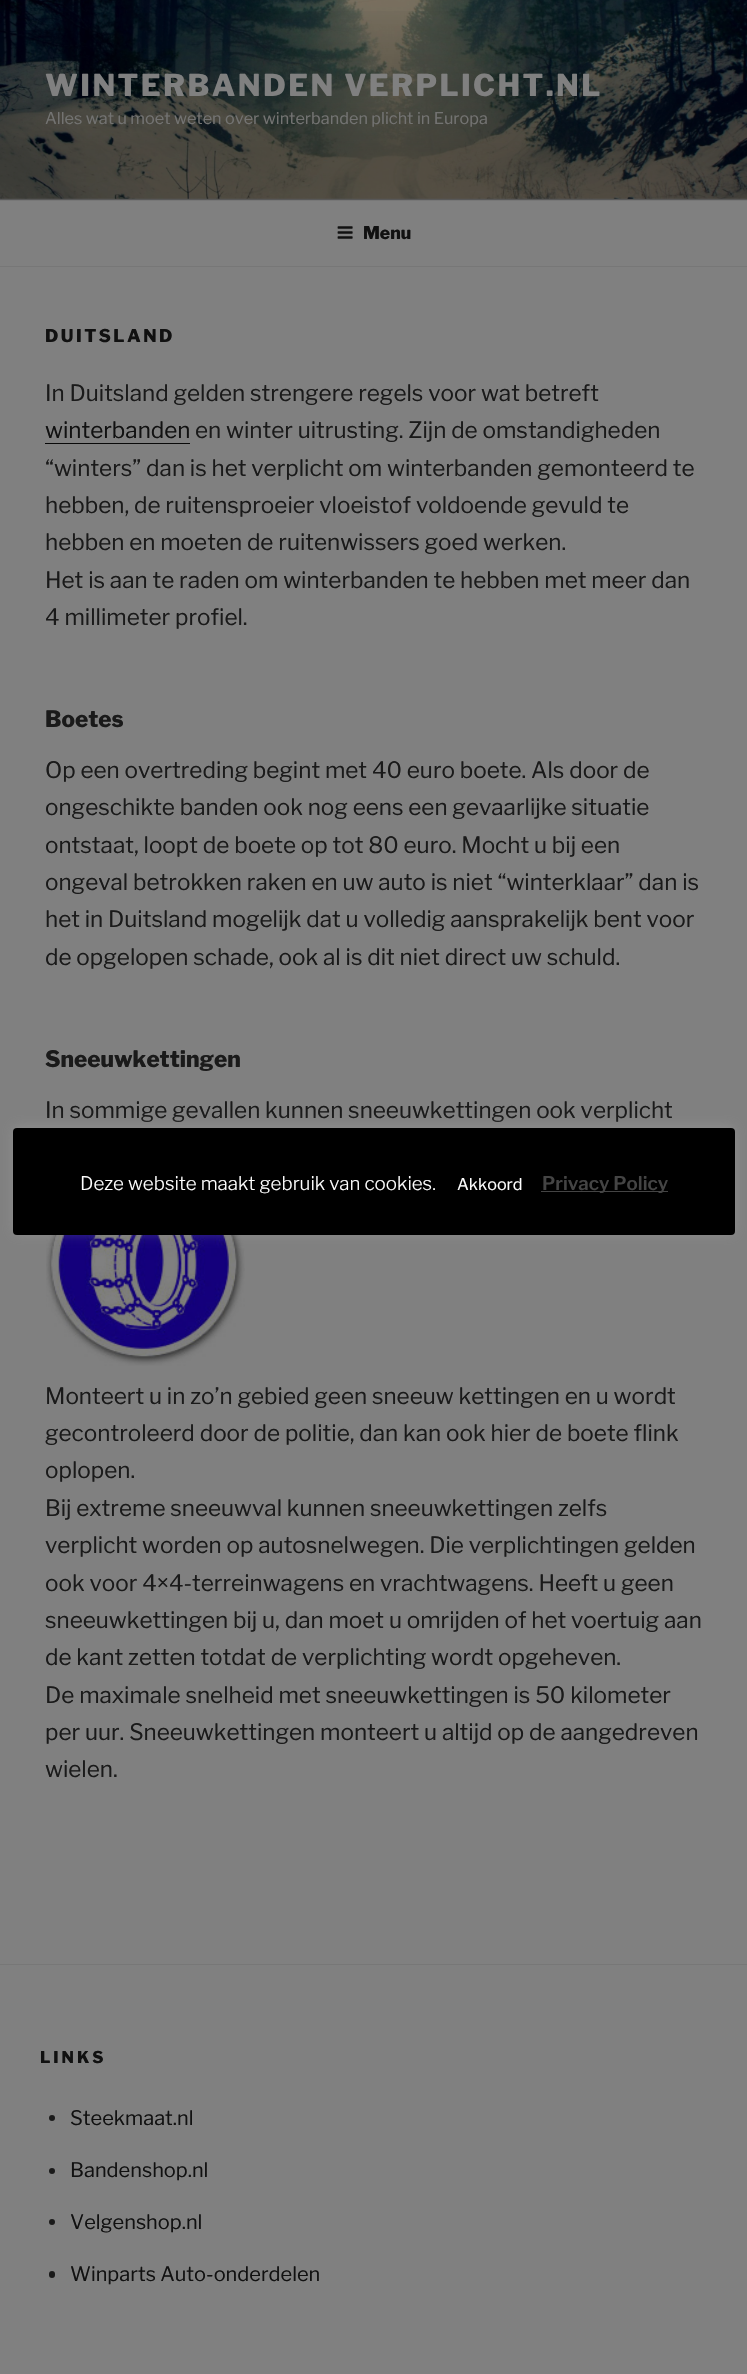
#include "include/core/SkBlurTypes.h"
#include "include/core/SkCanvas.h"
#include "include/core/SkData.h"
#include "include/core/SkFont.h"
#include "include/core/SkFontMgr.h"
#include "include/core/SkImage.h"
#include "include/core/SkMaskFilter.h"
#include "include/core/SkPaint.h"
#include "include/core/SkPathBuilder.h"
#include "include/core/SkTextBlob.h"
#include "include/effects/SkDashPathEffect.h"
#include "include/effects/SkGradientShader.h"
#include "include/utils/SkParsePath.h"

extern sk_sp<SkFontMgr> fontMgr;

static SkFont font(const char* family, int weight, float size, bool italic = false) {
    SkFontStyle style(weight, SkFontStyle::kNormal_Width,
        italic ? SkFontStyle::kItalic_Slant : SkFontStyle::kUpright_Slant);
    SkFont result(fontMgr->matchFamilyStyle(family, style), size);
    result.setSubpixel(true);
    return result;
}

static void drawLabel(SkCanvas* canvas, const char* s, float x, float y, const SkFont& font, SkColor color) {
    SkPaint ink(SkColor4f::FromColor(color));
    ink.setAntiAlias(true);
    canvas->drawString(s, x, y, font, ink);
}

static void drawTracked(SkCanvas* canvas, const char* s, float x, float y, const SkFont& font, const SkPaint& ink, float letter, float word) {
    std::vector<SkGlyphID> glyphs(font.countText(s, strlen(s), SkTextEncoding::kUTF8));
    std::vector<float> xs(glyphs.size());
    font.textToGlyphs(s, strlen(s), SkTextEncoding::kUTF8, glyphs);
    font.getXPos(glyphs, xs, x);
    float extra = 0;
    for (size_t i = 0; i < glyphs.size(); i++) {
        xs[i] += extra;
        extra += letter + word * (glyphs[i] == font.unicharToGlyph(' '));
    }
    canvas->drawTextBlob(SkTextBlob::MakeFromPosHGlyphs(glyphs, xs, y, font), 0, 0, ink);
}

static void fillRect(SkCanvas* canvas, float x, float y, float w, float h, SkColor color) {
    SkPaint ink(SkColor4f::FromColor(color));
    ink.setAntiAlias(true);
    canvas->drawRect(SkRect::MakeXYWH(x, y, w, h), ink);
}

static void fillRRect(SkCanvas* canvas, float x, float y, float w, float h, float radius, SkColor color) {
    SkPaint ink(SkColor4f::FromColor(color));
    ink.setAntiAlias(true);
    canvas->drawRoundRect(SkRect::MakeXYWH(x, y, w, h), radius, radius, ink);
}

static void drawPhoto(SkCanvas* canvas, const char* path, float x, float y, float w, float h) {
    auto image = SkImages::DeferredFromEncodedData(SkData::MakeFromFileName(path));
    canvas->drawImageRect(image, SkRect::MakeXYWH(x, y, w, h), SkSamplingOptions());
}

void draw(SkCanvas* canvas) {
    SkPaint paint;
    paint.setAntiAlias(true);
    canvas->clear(0xFF808080);
    fillRect(canvas, 0, 198, 747, 2, 0xFF7D7D7D);
    drawPhoto(canvas, "assets/img1.png", 0, 0, 747, 199);
    {
        const SkColor colors[] = {0x00000000, 0x4D000000, 0x4D000000};
        const float stops[] = {0, 0.75f, 1};
        const SkPoint ends[] = {{374, 0}, {374, 200}};
        paint.setShader(SkGradientShader::MakeLinear(ends, colors, stops, 3, SkTileMode::kClamp));
        paint.setAlpha(255);
    }
    canvas->drawRect(SkRect::MakeXYWH(0, 11, 747, 189), paint);
    SkFont font1 = font("Libre Franklin", 100, 30);
    paint.setShader(nullptr);
    paint.setColor(0xFF808080);
    drawTracked(canvas, "WINTERBANDEN VERPLICHT.NL", 45, 96, font1, paint, 2.4f, 0);
    SkFont font2 = font("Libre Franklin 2", 100, 16.25f);
    drawLabel(canvas, "Alles wat u moet weten over winterbanden plicht in Europa", 45, 124, font2, 0xFF737372);
    fillRect(canvas, 0, 200, 747, 1, 0xFF777777);
    fillRect(canvas, 0, 266, 747, 1, 0xFF777777);
    drawPhoto(canvas, "assets/img2.png", 337, 226, 16, 13);
    SkFont font3 = font("Libre Franklin", 100, 17.5f);
    drawLabel(canvas, "Menu", 363, 239, font3, 0xFF111111);
    paint.setColor(0xFF111111);
    drawTracked(canvas, "DUITSLAND", 45, 342, font3, paint, 2.5f, 0);
    SkFont font4 = font("Libre Franklin 2", 100, 22.5f);
    drawLabel(canvas, "In Duitsland gelden strengere regels voor wat betreft", 45, 401, font4, 0xFF1A1A1A);
    drawLabel(canvas, "winterbanden", 45, 438, font4, 0xFF111111);
    fillRect(canvas, 45, 443, 145, 1, 0xFF080808);
    drawLabel(canvas, "en winter uitrusting. Zijn de omstandigheden", 195, 438, font4, 0xFF1A1A1A);
    drawLabel(canvas, "“winters” dan is het verplicht om winterbanden gemonteerd te", 45, 476, font4, 0xFF1A1A1A);
    drawLabel(canvas, "hebben, de ruitensproeier vloeistof voldoende gevuld te", 45, 513, font4, 0xFF1A1A1A);
    drawLabel(canvas, "hebben en moeten de ruitenwissers goed werken.", 45, 550, font4, 0xFF1A1A1A);
    drawLabel(canvas, "Het is aan te raden om winterbanden te hebben met meer dan", 45, 588, font4, 0xFF1A1A1A);
    drawLabel(canvas, "4 millimeter profiel.", 45, 625, font4, 0xFF1A1A1A);
    SkFont font5 = font("Libre Franklin", 100, 22.5f);
    drawLabel(canvas, "Boetes", 45, 727, font5, 0xFF1A1A1A);
    drawLabel(canvas, "Op een overtreding begint met 40 euro boete. Als door de", 45, 778, font4, 0xFF1A1A1A);
    drawLabel(canvas, "ongeschikte banden ook nog eens een gevaarlijke situatie", 45, 815, font4, 0xFF1A1A1A);
    drawLabel(canvas, "ontstaat, loopt de boete op tot 80 euro. Mocht u bij een", 45, 853, font4, 0xFF1A1A1A);
    drawLabel(canvas, "ongeval betrokken raken en uw auto is niet “winterklaar” dan is", 45, 890, font4, 0xFF1A1A1A);
    drawLabel(canvas, "het in Duitsland mogelijk dat u volledig aansprakelijk bent voor", 45, 927, font4, 0xFF1A1A1A);
    drawLabel(canvas, "de opgelopen schade, ook al is dit niet direct uw schuld.", 45, 965, font4, 0xFF1A1A1A);
    drawLabel(canvas, "Sneeuwkettingen", 45, 1067, font5, 0xFF1A1A1A);
    drawLabel(canvas, "In sommige gevallen kunnen sneeuwkettingen ook verplicht", 45, 1118, font4, 0xFF1A1A1A);
    drawPhoto(canvas, "assets/img3.png", 46, 1235, 199, 131);
    drawLabel(canvas, "Monteert u in zo’n gebied geen sneeuw kettingen en u wordt", 45, 1404, font4, 0xFF1A1A1A);
    drawLabel(canvas, "gecontroleerd door de politie, dan kan ook hier de boete flink", 45, 1441, font4, 0xFF1A1A1A);
    drawLabel(canvas, "oplopen.", 45, 1478, font4, 0xFF1A1A1A);
    drawLabel(canvas, "Bij extreme sneeuwval kunnen sneeuwkettingen zelfs", 45, 1516, font4, 0xFF1A1A1A);
    drawLabel(canvas, "verplicht worden op autosnelwegen. Die verplichtingen gelden", 45, 1553, font4, 0xFF1A1A1A);
    drawLabel(canvas, "ook voor 4×4-terreinwagens en vrachtwagens. Heeft u geen", 45, 1591, font4, 0xFF1A1A1A);
    drawLabel(canvas, "sneeuwkettingen bij u, dan moet u omrijden of het voertuig aan", 45, 1628, font4, 0xFF1A1A1A);
    drawLabel(canvas, "de kant zetten totdat de verplichting wordt opgeheven.", 45, 1665, font4, 0xFF1A1A1A);
    drawLabel(canvas, "De maximale snelheid met sneeuwkettingen is 50 kilometer", 45, 1703, font4, 0xFF1A1A1A);
    drawLabel(canvas, "per uur. Sneeuwkettingen monteert u altijd op de aangedreven", 45, 1740, font4, 0xFF1A1A1A);
    drawLabel(canvas, "wielen.", 45, 1777, font4, 0xFF1A1A1A);
    fillRect(canvas, 0, 1964, 747, 1, 0xFF777777);
    SkFont font6 = font("Libre Franklin", 100, 16.25f);
    drawTracked(canvas, "LINKS", 40, 2063, font6, paint, 3, 0);
    paint.setColor(0xFF1A1A1A);
    canvas->drawCircle(52, 2118, 3, paint);
    SkFont font7 = font("Libre Franklin 2", 100, 20);
    drawLabel(canvas, "Steekmaat.nl", 70, 2125, font7, 0xFF111111);
    canvas->drawCircle(52, 2171, 3, paint);
    drawLabel(canvas, "Bandenshop.nl", 70, 2177, font7, 0xFF111111);
    canvas->drawCircle(52, 2222, 3, paint);
    drawLabel(canvas, "Velgenshop.nl", 70, 2229, font7, 0xFF111111);
    fillRRect(canvas, 49, 2271, 6, 7, 3, 0xFF1A1A1A);
    drawLabel(canvas, "Winparts Auto-onderdelen", 70, 2281, font7, 0xFF111111);
    paint.setColor(0x4DACABAB);
    paint.setMaskFilter(SkMaskFilter::MakeBlur(kNormal_SkBlurStyle, 6));
    canvas->drawRoundRect(SkRect::MakeXYWH(13, 1126, 722, 108), 4, 4, paint);
    paint.setMaskFilter(nullptr);
    fillRRect(canvas, 13, 1128, 722, 107, 4, 0xFF000000);
    SkFont font8 = font("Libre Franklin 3", 100, 18.75f);
    drawLabel(canvas, "Deze website maakt gebruik van cookies.", 80, 1190, font8, 0xFFFFFFFF);
    drawLabel(canvas, "Akkoord", 457, 1190, font2, 0xFFFFFFFF);
    fillRect(canvas, 541, 1191, 127, 1, 0xFF444444);
    SkFont font9 = font("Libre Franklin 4", 100, 18.75f);
    drawLabel(canvas, "Privacy Policy", 542, 1190, font9, 0xFF444444);
}
